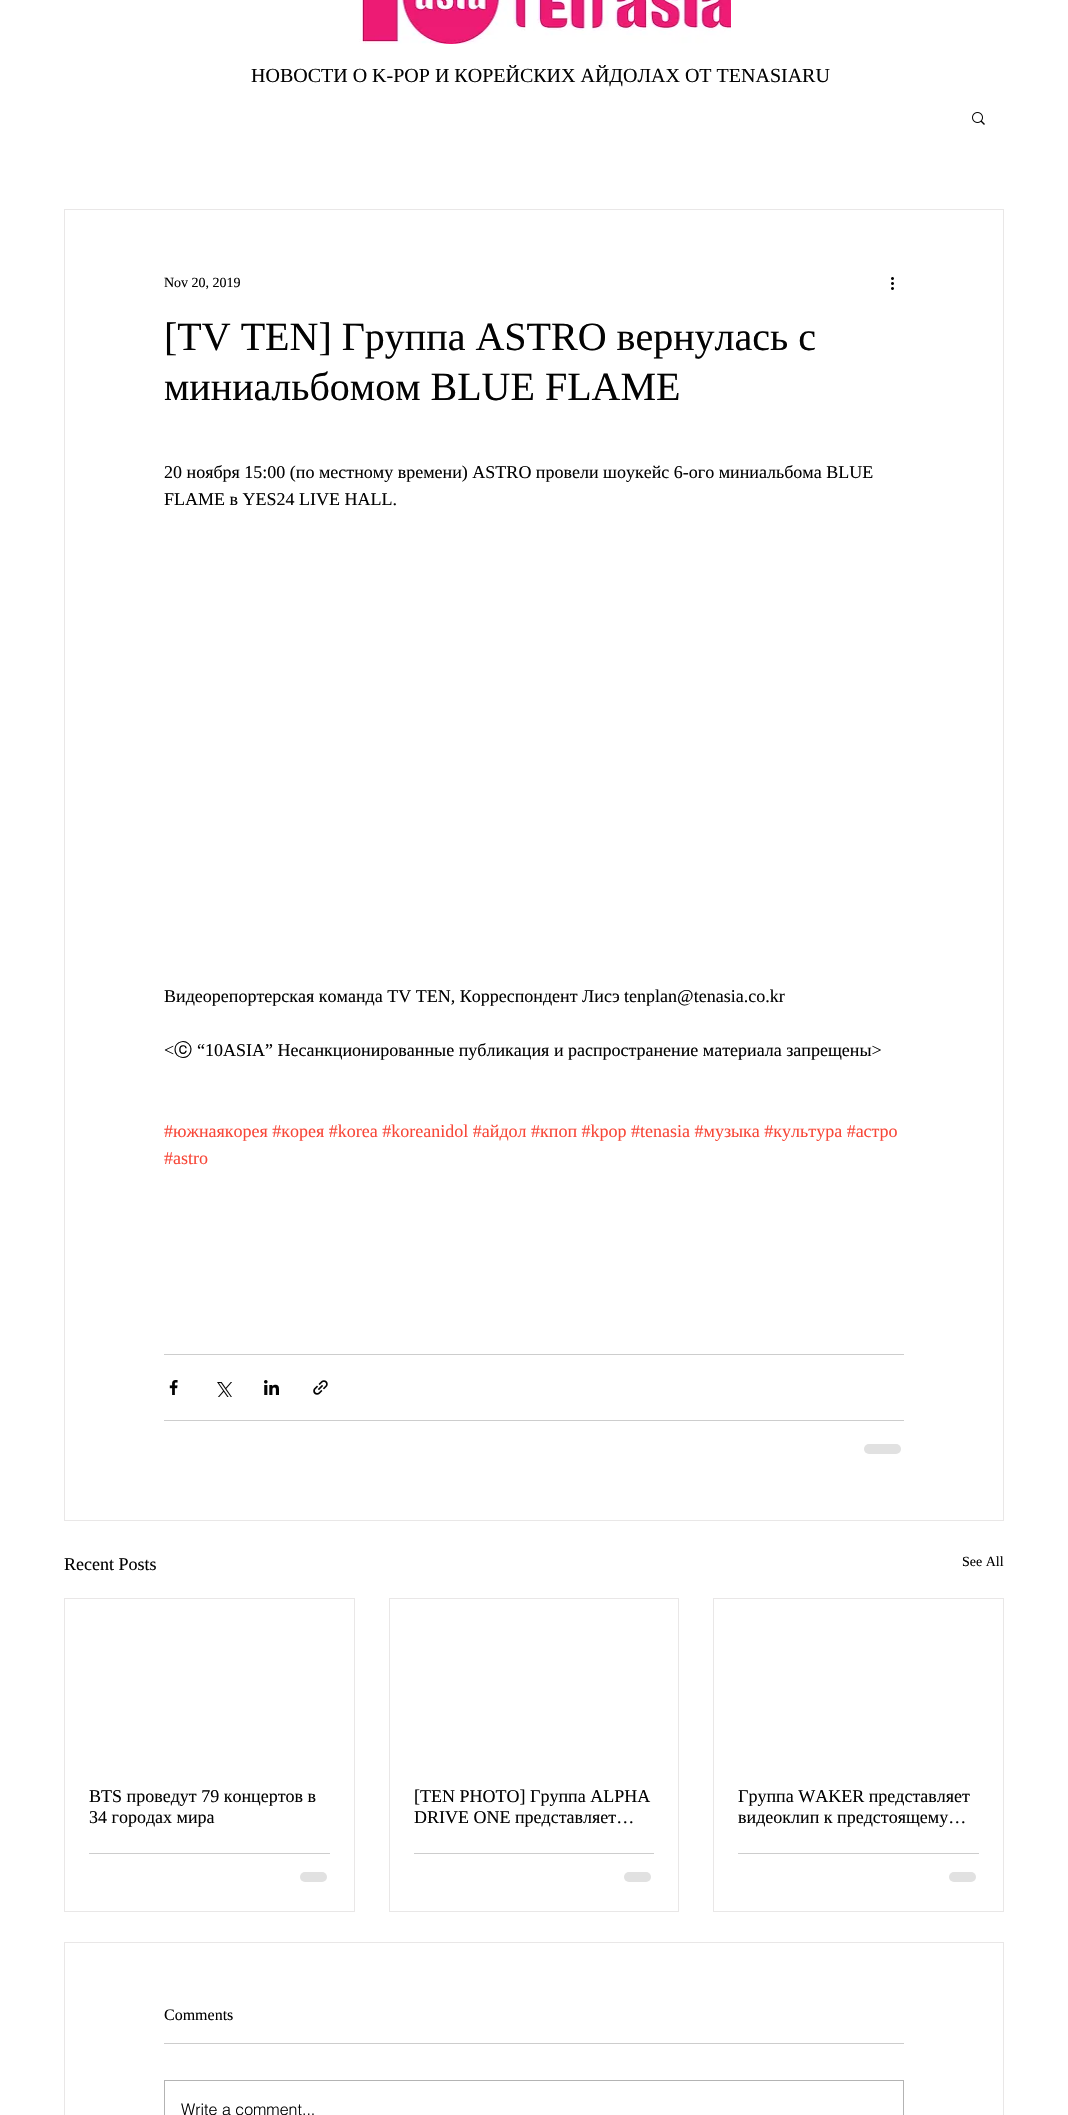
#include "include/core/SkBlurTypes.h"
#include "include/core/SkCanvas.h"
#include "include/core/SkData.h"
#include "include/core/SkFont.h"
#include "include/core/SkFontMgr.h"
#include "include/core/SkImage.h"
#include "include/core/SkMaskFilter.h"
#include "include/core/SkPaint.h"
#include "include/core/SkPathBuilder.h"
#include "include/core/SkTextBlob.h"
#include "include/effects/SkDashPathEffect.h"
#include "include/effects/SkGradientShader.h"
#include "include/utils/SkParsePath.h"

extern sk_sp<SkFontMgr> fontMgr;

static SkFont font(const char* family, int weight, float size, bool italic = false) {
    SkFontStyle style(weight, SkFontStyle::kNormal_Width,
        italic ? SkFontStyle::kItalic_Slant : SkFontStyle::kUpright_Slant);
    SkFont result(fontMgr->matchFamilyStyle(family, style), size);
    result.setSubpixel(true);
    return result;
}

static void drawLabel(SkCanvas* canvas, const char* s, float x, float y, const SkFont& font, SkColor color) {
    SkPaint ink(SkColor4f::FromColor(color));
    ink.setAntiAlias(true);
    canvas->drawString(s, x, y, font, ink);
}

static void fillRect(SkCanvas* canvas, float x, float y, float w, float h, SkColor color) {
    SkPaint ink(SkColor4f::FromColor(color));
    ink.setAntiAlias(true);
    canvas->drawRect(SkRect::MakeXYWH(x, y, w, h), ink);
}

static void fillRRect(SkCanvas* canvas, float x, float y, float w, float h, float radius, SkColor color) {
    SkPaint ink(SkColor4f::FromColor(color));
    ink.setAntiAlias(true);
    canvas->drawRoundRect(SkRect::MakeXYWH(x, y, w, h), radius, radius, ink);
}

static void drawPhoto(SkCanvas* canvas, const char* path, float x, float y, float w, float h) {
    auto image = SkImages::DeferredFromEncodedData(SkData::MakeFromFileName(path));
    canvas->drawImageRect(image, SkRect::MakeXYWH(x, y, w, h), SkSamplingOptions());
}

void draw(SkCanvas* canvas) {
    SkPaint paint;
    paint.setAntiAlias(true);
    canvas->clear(0xFFFFFFFF);
    drawPhoto(canvas, "assets/img1.png", 359, 0, 372, 44);
    SkFont font1 = font("Liberation Serif", 400, 20);
    drawLabel(canvas, "НОВОСТИ О K-POP И КОРЕЙСКИХ АЙДОЛАХ ОТ TENASIARU", 251, 82, font1, 0xFF030303);
    drawPhoto(canvas, "assets/img2.png", 972, 112, 13, 13);
    paint.setStroke(true);
    paint.setStrokeWidth(1);
    paint.setColor(0xFFE9E7E7);
    canvas->drawRect(SkRect::MakeXYWH(64.5f, 209.5f, 939, 1311), paint);
    SkFont font2 = font("Liberation Serif", 400, 14);
    drawLabel(canvas, "Nov 20, 2019", 164, 287, font2, 0xFF030303);
    drawPhoto(canvas, "assets/img3.png", 891, 277, 3, 13);
    SkFont font3 = font("Liberation Serif", 400, 40);
    drawLabel(canvas, "[TV TEN] Группа ASTRO вернулась с", 164, 350, font3, 0xFF030303);
    drawLabel(canvas, "миниальбомом BLUE FLAME", 164, 400, font3, 0xFF030303);
    SkFont font4 = font("Liberation Serif", 400, 18);
    drawLabel(canvas, "20 ноября 15:00 (по местному времени) ASTRO провели шоукейс 6-ого миниальбома BLUE", 164, 478, font4, 0xFF030303);
    drawLabel(canvas, "FLAME в YES24 LIVE HALL.", 164, 505, font4, 0xFF030303);
    drawLabel(canvas, "Видеорепортерская команда TV TEN, Корреспондент Лисэ tenplan@tenasia.co.kr", 164, 1002, font4, 0xFF030303);
    drawLabel(canvas, "<", 164, 1056, font4, 0xFF030303);
    SkFont font5 = font("WenQuanYi Zen Hei", 500, 18);
    drawLabel(canvas, "ⓒ", 174, 1056, font5, 0xFF030303);
    drawLabel(canvas, "“10ASIA” Несанкционированные публикация и распространение материала запрещены>", 197, 1056, font4, 0xFF030303);
    drawLabel(canvas, "#южнаякорея #корея #korea #koreanidol #айдол #кпоп #kpop #tenasia #музыка #культура #астро", 164, 1137, font4, 0xFFF84738);
    drawLabel(canvas, "#astro", 164, 1164, font4, 0xFFF84738);
    fillRect(canvas, 164, 1354, 740, 1, 0xFFCDCDCD);
    drawPhoto(canvas, "assets/img4.png", 169, 1380, 9, 15);
    drawPhoto(canvas, "assets/img5.png", 217, 1382, 15, 15);
    drawPhoto(canvas, "assets/img6.png", 264, 1380, 15, 15);
    drawPhoto(canvas, "assets/img7.png", 313, 1380, 15, 15);
    fillRect(canvas, 164, 1420, 740, 1, 0xFFCDCDCD);
    fillRRect(canvas, 864, 1444, 37, 10, 5, 0xFFE1E1E1);
    drawLabel(canvas, "Recent Posts", 64, 1570, font4, 0xFF030303);
    drawLabel(canvas, "See All", 962, 1566, font2, 0xFF030303);
    canvas->drawRect(SkRect::MakeXYWH(64.5f, 1598.5f, 290, 313), paint);
    drawLabel(canvas, "BTS проведут 79 концертов в", 89, 1802, font4, 0xFF030303);
    drawLabel(canvas, "34 городах мира", 89, 1823, font4, 0xFF030303);
    fillRect(canvas, 89, 1853, 241, 1, 0xFFCDCDCD);
    fillRRect(canvas, 300, 1872, 27, 10, 5, 0xFFE1E1E1);
    canvas->drawRect(SkRect::MakeXYWH(389.5f, 1598.5f, 289, 313), paint);
    drawLabel(canvas, "[TEN PHOTO] Группа ALPHA", 414, 1802, font4, 0xFF030303);
    drawLabel(canvas, "DRIVE ONE представляет…", 414, 1823, font4, 0xFF030303);
    fillRect(canvas, 414, 1853, 240, 1, 0xFFCDCDCD);
    fillRRect(canvas, 624, 1872, 27, 10, 5, 0xFFE1E1E1);
    canvas->drawRect(SkRect::MakeXYWH(713.5f, 1598.5f, 290, 313), paint);
    drawLabel(canvas, "Группа WAKER представляет", 738, 1802, font4, 0xFF030303);
    drawLabel(canvas, "видеоклип к предстоящему…", 738, 1823, font4, 0xFF030303);
    fillRect(canvas, 738, 1853, 241, 1, 0xFFCDCDCD);
    fillRRect(canvas, 949, 1872, 27, 10, 5, 0xFFE1E1E1);
    canvas->drawRect(SkRect::MakeXYWH(64.5f, 1942.5f, 939, 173), paint);
    SkFont font6 = font("Liberation Serif", 400, 16);
    drawLabel(canvas, "Comments", 164, 2020, font6, 0xFF030303);
    fillRect(canvas, 164, 2043, 740, 1, 0xFFCDCDCD);
    paint.setColor(0xFFB3B3B3);
    canvas->drawRect(SkRect::MakeXYWH(164.5f, 2080.5f, 739, 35), paint);
    SkFont font7 = font("helvetica", 300, 16);
    drawLabel(canvas, "Write a comment...", 181, 2115, font7, 0xFF030303);
}
